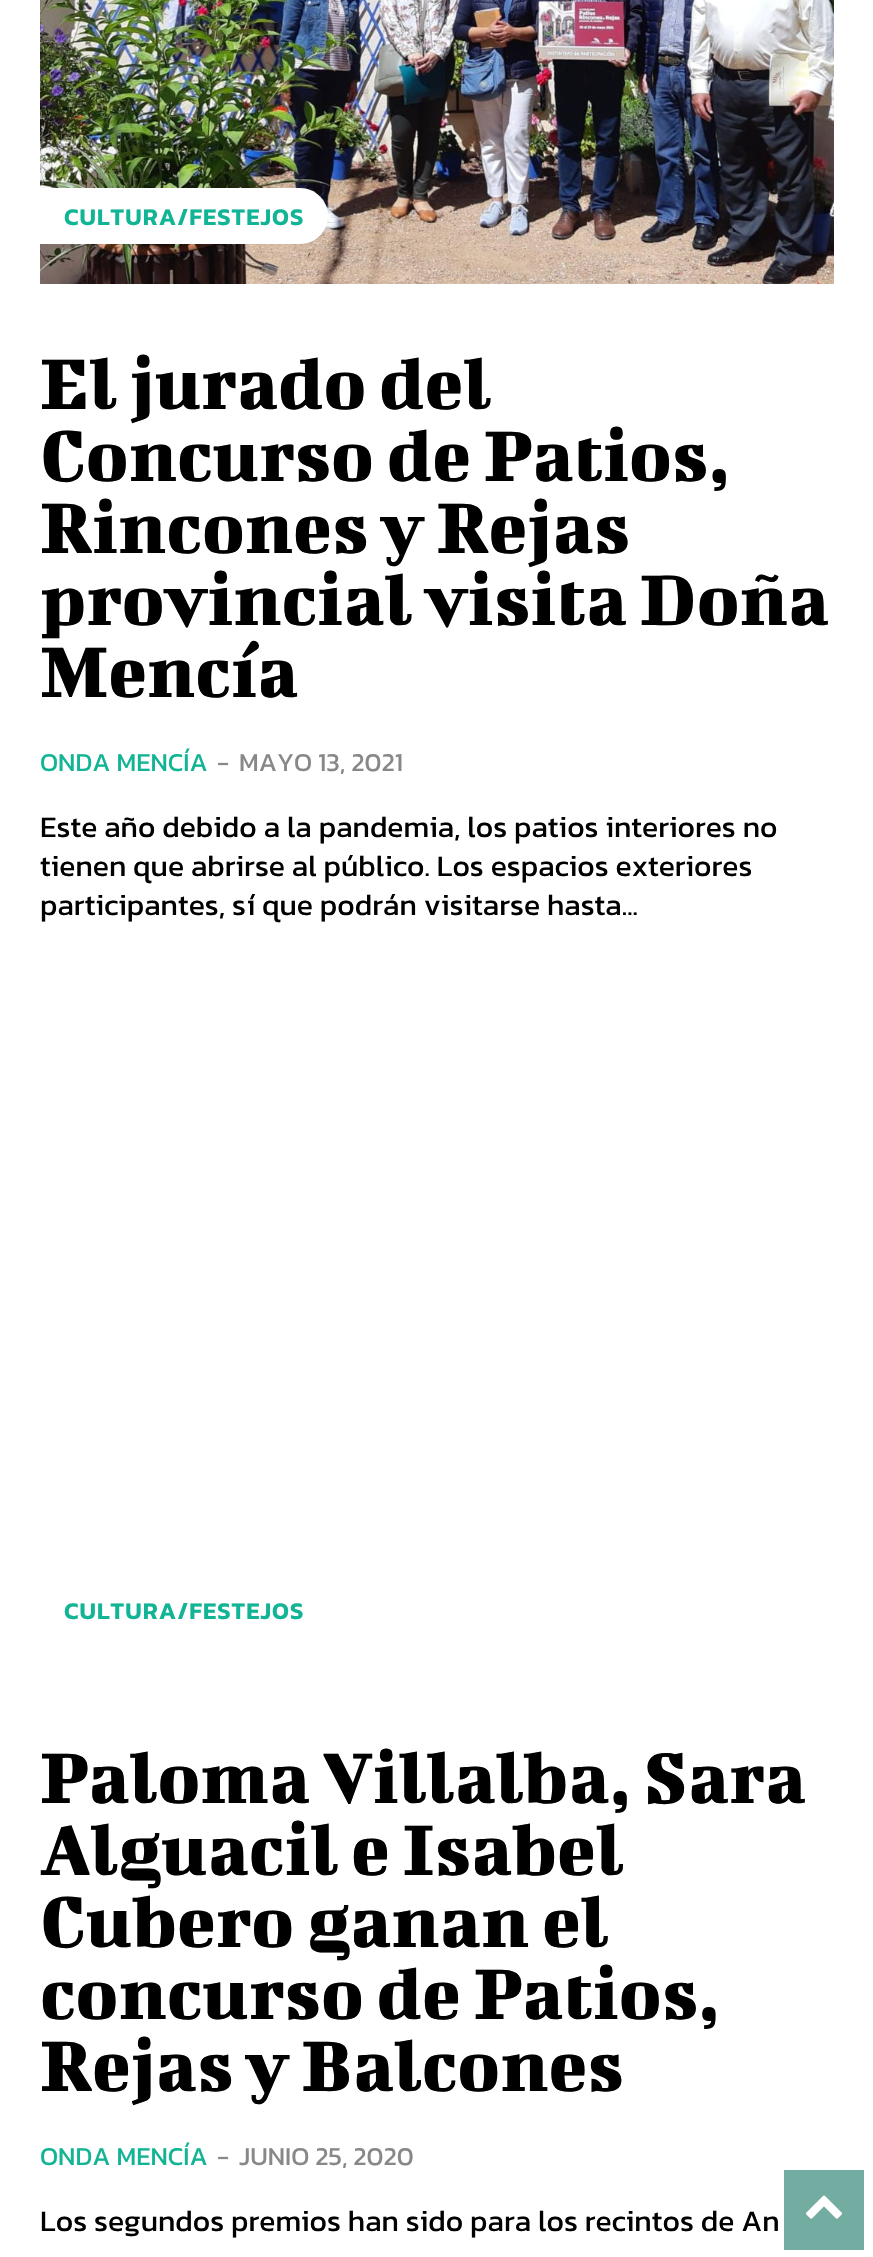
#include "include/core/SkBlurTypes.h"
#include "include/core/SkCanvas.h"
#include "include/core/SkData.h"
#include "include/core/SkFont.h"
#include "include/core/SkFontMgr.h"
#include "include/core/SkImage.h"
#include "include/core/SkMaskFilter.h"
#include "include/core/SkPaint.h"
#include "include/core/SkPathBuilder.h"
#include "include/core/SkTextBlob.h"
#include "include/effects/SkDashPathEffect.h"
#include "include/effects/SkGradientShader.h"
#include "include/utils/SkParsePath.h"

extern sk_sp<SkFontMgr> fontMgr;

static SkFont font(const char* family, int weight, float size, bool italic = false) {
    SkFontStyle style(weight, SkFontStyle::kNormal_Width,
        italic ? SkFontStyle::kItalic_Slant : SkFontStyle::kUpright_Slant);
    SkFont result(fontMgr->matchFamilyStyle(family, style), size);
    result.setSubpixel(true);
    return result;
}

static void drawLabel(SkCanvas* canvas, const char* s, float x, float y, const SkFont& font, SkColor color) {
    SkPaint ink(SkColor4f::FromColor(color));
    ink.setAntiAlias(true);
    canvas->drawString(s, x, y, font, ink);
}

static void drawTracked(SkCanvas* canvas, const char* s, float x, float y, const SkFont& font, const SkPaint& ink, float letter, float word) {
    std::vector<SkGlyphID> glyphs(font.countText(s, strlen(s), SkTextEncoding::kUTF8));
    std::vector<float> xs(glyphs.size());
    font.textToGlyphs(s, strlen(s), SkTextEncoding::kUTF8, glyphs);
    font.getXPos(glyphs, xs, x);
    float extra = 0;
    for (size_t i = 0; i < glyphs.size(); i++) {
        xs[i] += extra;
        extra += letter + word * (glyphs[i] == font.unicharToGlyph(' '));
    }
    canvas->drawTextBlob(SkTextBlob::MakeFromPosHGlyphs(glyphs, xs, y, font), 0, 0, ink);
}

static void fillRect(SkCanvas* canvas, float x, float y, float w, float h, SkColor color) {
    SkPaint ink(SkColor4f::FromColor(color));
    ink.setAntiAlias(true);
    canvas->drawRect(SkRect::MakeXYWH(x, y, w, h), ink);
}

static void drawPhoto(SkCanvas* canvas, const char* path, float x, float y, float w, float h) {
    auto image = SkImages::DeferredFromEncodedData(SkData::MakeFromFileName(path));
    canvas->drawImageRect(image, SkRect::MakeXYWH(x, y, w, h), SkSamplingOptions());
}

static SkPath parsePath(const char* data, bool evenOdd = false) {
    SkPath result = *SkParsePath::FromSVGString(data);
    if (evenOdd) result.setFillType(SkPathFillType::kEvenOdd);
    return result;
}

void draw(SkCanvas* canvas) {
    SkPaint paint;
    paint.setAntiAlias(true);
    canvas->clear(0xFFFFFFFF);
    drawPhoto(canvas, "assets/img1.png", 40, 0, 794, 284);
    paint.setColor(0xFFFFFFFF);
    canvas->drawPath(parsePath("M40 188H300C315.5 188 328 200.5 328 216C328 231.5 315.5 244 300 244H40Z"), paint);
    SkFont font1 = font("Kanit", 600, 24);
    paint.setColor(0xFF11B494);
    drawTracked(canvas, "CULTURA/FESTEJOS", 64, 225, font1, paint, 1, 0);
    SkFont font2 = font("Bigshot One", 400, 80);
    drawLabel(canvas, "El jurado del", 40, 409, font2, 0xFF000000);
    drawLabel(canvas, "Concurso de Patios,", 40, 481, font2, 0xFF000000);
    drawLabel(canvas, "Rincones y Rejas", 40, 553, font2, 0xFF000000);
    drawLabel(canvas, "provincial visita Doña", 40, 625, font2, 0xFF000000);
    drawLabel(canvas, "Mencía", 40, 697, font2, 0xFF000000);
    SkFont font3 = font("Kanit", 400, 26);
    drawLabel(canvas, "ONDA MENCÍA", 40, 771, font3, 0xFF11B494);
    drawLabel(canvas, "-", 217, 771, font3, 0xFF888888);
    drawLabel(canvas, "MAYO 13, 2021", 239, 771, font3, 0xFF888888);
    SkFont font4 = font("Kanit", 400, 30);
    drawLabel(canvas, "Este año debido a la pandemia, los patios interiores no", 40, 837, font4, 0xFF000000);
    drawLabel(canvas, "tienen que abrirse al público. Los espacios exteriores", 40, 876, font4, 0xFF000000);
    drawLabel(canvas, "participantes, sí que podrán visitarse hasta...", 40, 915, font4, 0xFF000000);
    drawTracked(canvas, "CULTURA/FESTEJOS", 64, 1619, font1, paint, 1, 0);
    drawLabel(canvas, "Paloma Villalba, Sara", 40, 1803, font2, 0xFF000000);
    drawLabel(canvas, "Alguacil e Isabel", 40, 1875, font2, 0xFF000000);
    drawLabel(canvas, "Cubero ganan el", 40, 1947, font2, 0xFF000000);
    drawLabel(canvas, "concurso de Patios,", 40, 2019, font2, 0xFF000000);
    drawLabel(canvas, "Rejas y Balcones", 40, 2091, font2, 0xFF000000);
    drawLabel(canvas, "ONDA MENCÍA", 40, 2165, font3, 0xFF11B494);
    drawLabel(canvas, "-", 217, 2165, font3, 0xFF888888);
    drawLabel(canvas, "JUNIO 25, 2020", 239, 2165, font3, 0xFF888888);
    drawLabel(canvas, "Los segundos premios han sido para los recintos de An", 40, 2231, font4, 0xFF000000);
    fillRect(canvas, 784, 2170, 80, 80, 0xFF73ACA1);
    drawPhoto(canvas, "assets/img2.png", 806, 2195, 36, 24);
}
